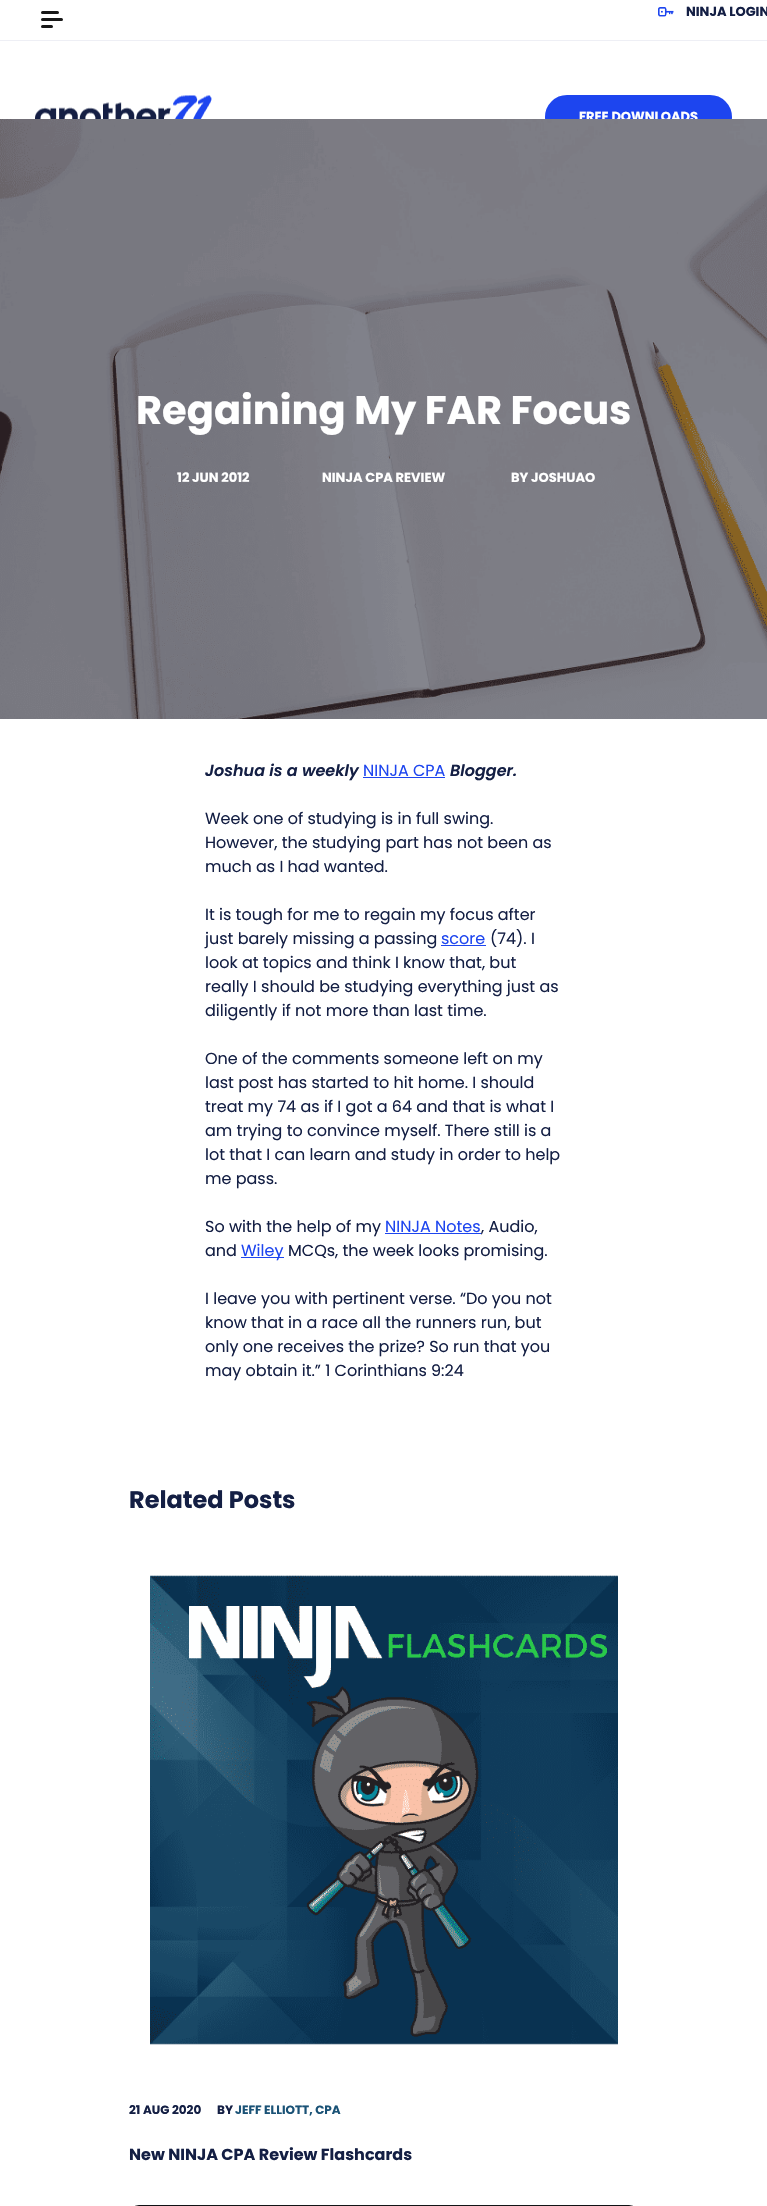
#include "include/core/SkBlurTypes.h"
#include "include/core/SkCanvas.h"
#include "include/core/SkData.h"
#include "include/core/SkFont.h"
#include "include/core/SkFontMgr.h"
#include "include/core/SkImage.h"
#include "include/core/SkMaskFilter.h"
#include "include/core/SkPaint.h"
#include "include/core/SkPathBuilder.h"
#include "include/core/SkTextBlob.h"
#include "include/effects/SkDashPathEffect.h"
#include "include/effects/SkGradientShader.h"
#include "include/utils/SkParsePath.h"

extern sk_sp<SkFontMgr> fontMgr;

static SkFont font(const char* family, int weight, float size, bool italic = false) {
    SkFontStyle style(weight, SkFontStyle::kNormal_Width,
        italic ? SkFontStyle::kItalic_Slant : SkFontStyle::kUpright_Slant);
    SkFont result(fontMgr->matchFamilyStyle(family, style), size);
    result.setSubpixel(true);
    return result;
}

static void drawLabel(SkCanvas* canvas, const char* s, float x, float y, const SkFont& font, SkColor color) {
    SkPaint ink(SkColor4f::FromColor(color));
    ink.setAntiAlias(true);
    canvas->drawString(s, x, y, font, ink);
}

static void fillRect(SkCanvas* canvas, float x, float y, float w, float h, SkColor color) {
    SkPaint ink(SkColor4f::FromColor(color));
    ink.setAntiAlias(true);
    canvas->drawRect(SkRect::MakeXYWH(x, y, w, h), ink);
}

static void drawPhoto(SkCanvas* canvas, const char* path, float x, float y, float w, float h) {
    auto image = SkImages::DeferredFromEncodedData(SkData::MakeFromFileName(path));
    canvas->drawImageRect(image, SkRect::MakeXYWH(x, y, w, h), SkSamplingOptions());
}

static SkPath parsePath(const char* data, bool evenOdd = false) {
    SkPath result = *SkParsePath::FromSVGString(data);
    if (evenOdd) result.setFillType(SkPathFillType::kEvenOdd);
    return result;
}

void draw(SkCanvas* canvas) {
    SkPaint paint;
    paint.setAntiAlias(true);
    canvas->clear(0xFFFFFFFF);
    paint.setStroke(true);
    paint.setStrokeWidth(3);
    paint.setStrokeCap(SkPaint::kRound_Cap);
    paint.setStrokeJoin(SkPaint::kRound_Join);
    paint.setColor(0xFF181818);
    canvas->drawPath(parsePath("M42.5 26.5H51.5M42.5 19.5H61.5M42.5 12.5H57.5"), paint);
    drawPhoto(canvas, "assets/img1.png", 658, 7, 16, 10);
    SkFont font1 = font("Poppins", 700, 13);
    drawLabel(canvas, "NINJA LOGIN", 686, 16, font1, 0xFF141F44);
    fillRect(canvas, 0, 40, 767, 1, 0xFFEEEFF5);
    drawPhoto(canvas, "assets/img2.png", 35, 95, 177, 24);
    drawPhoto(canvas, "assets/img3.png", 0, 119, 767, 600);
    canvas->save();
    canvas->clipRect(SkRect::MakeXYWH(0, 41, 767, 78));
    paint.setStroke(false);
    paint.setColor(0xFF1D45EF);
    canvas->drawRoundRect(SkRect::MakeXYWH(546, 96, 185, 42), 21, 21, paint);
    paint.setStroke(true);
    paint.setStrokeWidth(2);
    paint.setStrokeCap(SkPaint::kButt_Cap);
    paint.setStrokeJoin(SkPaint::kMiter_Join);
    canvas->drawRoundRect(SkRect::MakeXYWH(546, 96, 185, 42), 21, 21, paint);
    drawLabel(canvas, "FREE DOWNLOADS", 579, 121, font1, 0xFFFFFFFF);
    canvas->restore();
    SkFont font2 = font("Poppins", 700, 40);
    drawLabel(canvas, "Regaining My FAR Focus", 136, 424, font2, 0xFFFFFFFF);
    drawLabel(canvas, "12 JUN 2012", 177, 482, font1, 0xFFFFFFFF);
    drawLabel(canvas, "NINJA CPA REVIEW", 322, 482, font1, 0xFFFFFFFF);
    drawLabel(canvas, "BY JOSHUAO", 511, 482, font1, 0xFFFFFFFF);
    SkFont font3 = font("Poppins", 600, 16, true);
    drawLabel(canvas, "Joshua is a weekly", 205, 776, font3, 0xFF141F44);
    fillRect(canvas, 363, 777, 82, 1, 0xFF1D45EF);
    SkFont font4 = font("Poppins", 400, 16);
    drawLabel(canvas, "NINJA CPA", 363, 776, font4, 0xFF1D45EF);
    drawLabel(canvas, "Blogger.", 450, 776, font3, 0xFF141F44);
    drawLabel(canvas, "Week one of studying is in full swing.", 205, 824, font4, 0xFF141F44);
    drawLabel(canvas, "However, the studying part has not been as", 205, 848, font4, 0xFF141F44);
    drawLabel(canvas, "much as I had wanted.", 205, 872, font4, 0xFF141F44);
    drawLabel(canvas, "It is tough for me to regain my focus after", 205, 920, font4, 0xFF141F44);
    drawLabel(canvas, "just barely missing a passing", 205, 944, font4, 0xFF141F44);
    drawLabel(canvas, "score", 441, 944, font4, 0xFF1D45EF);
    fillRect(canvas, 441, 945, 45, 1, 0xFF1D45EF);
    drawLabel(canvas, "(74). I", 490, 944, font4, 0xFF141F44);
    drawLabel(canvas, "look at topics and think I know that, but", 205, 968, font4, 0xFF141F44);
    drawLabel(canvas, "really I should be studying everything just as", 205, 992, font4, 0xFF141F44);
    drawLabel(canvas, "diligently if not more than last time.", 205, 1016, font4, 0xFF141F44);
    drawLabel(canvas, "One of the comments someone left on my", 205, 1064, font4, 0xFF141F44);
    drawLabel(canvas, "last post has started to hit home. I should", 205, 1088, font4, 0xFF141F44);
    drawLabel(canvas, "treat my 74 as if I got a 64 and that is what I", 205, 1112, font4, 0xFF141F44);
    drawLabel(canvas, "am trying to convince myself. There still is a", 205, 1136, font4, 0xFF141F44);
    drawLabel(canvas, "lot that I can learn and study in order to help", 205, 1160, font4, 0xFF141F44);
    drawLabel(canvas, "me pass.", 205, 1184, font4, 0xFF141F44);
    drawLabel(canvas, "So with the help of my", 205, 1232, font4, 0xFF141F44);
    drawLabel(canvas, "NINJA Notes", 385, 1232, font4, 0xFF1D45EF);
    fillRect(canvas, 385, 1233, 96, 1, 0xFF1D45EF);
    drawLabel(canvas, ", Audio,", 481, 1232, font4, 0xFF141F44);
    drawLabel(canvas, "and", 205, 1256, font4, 0xFF141F44);
    fillRect(canvas, 241, 1257, 43, 1, 0xFF1D45EF);
    drawLabel(canvas, "Wiley", 241, 1256, font4, 0xFF1D45EF);
    drawLabel(canvas, "MCQs, the week looks promising.", 288, 1256, font4, 0xFF141F44);
    drawLabel(canvas, "I leave you with pertinent verse. “Do you not", 205, 1304, font4, 0xFF141F44);
    drawLabel(canvas, "know that in a race all the runners run, but", 205, 1328, font4, 0xFF141F44);
    drawLabel(canvas, "only one receives the prize? So run that you", 205, 1352, font4, 0xFF141F44);
    drawLabel(canvas, "may obtain it.” 1 Corinthians 9:24", 205, 1376, font4, 0xFF141F44);
    SkFont font5 = font("Poppins", 700, 24);
    drawLabel(canvas, "Related Posts", 129, 1508, font5, 0xFF141F44);
    drawPhoto(canvas, "assets/img4.png", 150, 1575, 468, 470);
    SkFont font6 = font("Poppins", 700, 12);
    drawLabel(canvas, "21 AUG 2020", 129, 2114, font6, 0xFF141F44);
    drawLabel(canvas, "BY", 217, 2114, font6, 0xFF141F44);
    drawLabel(canvas, "JEFF ELLIOTT, CPA", 235, 2114, font6, 0xFF1A5276);
    SkFont font7 = font("Poppins", 700, 16);
    drawLabel(canvas, "New NINJA CPA Review Flashcards", 129, 2160, font7, 0xFF141F44);
    drawPhoto(canvas, "assets/img5.png", 135, 2205, 498, 1);
}
